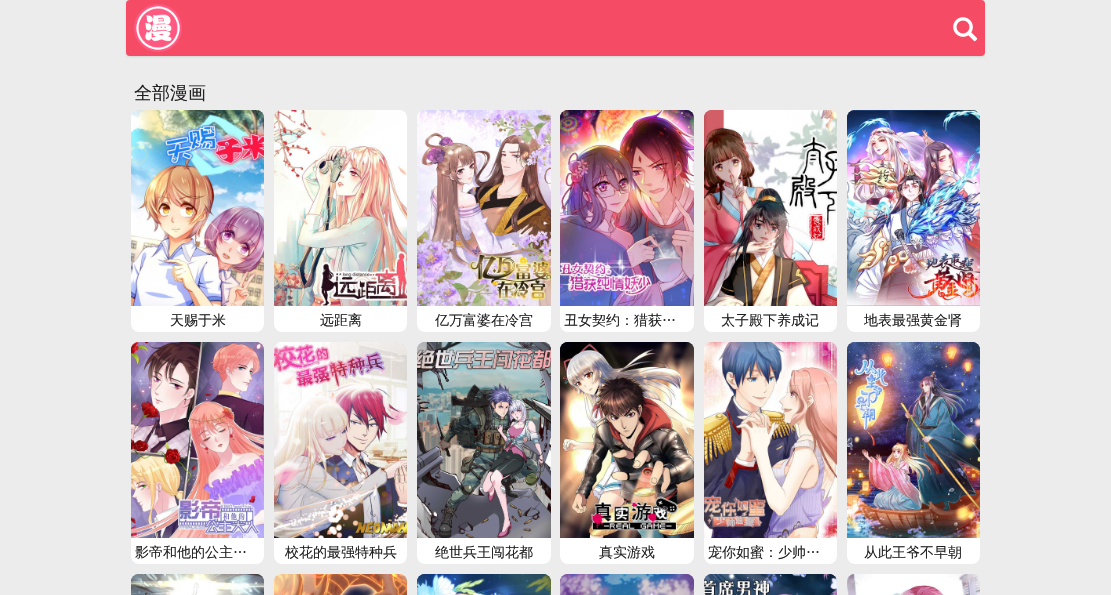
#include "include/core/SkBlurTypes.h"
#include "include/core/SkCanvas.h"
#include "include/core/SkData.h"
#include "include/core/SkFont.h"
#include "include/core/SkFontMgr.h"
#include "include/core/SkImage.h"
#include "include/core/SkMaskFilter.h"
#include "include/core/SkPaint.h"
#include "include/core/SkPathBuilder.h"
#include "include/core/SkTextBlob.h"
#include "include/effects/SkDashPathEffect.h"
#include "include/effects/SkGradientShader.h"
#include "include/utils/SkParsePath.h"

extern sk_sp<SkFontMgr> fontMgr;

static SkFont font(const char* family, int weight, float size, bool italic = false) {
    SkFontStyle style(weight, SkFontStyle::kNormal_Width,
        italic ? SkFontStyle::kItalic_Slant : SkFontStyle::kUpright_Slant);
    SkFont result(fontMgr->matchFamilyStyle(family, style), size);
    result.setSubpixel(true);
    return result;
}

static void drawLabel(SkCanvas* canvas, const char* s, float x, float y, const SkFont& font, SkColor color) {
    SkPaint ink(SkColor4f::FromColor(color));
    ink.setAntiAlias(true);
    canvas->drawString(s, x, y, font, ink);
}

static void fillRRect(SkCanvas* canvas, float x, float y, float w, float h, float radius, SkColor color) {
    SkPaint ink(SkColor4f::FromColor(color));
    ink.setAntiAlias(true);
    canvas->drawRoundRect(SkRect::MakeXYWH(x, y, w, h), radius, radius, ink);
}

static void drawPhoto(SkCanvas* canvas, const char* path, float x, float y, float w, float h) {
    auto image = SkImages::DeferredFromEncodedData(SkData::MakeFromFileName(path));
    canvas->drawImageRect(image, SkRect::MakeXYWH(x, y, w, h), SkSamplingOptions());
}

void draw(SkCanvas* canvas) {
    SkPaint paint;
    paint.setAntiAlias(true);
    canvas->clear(0xFFECECEC);
    paint.setColor(0x1A000000);
    paint.setMaskFilter(SkMaskFilter::MakeBlur(kNormal_SkBlurStyle, 1));
    canvas->drawRoundRect(SkRect::MakeXYWH(126, 1, 859, 56), 4, 4, paint);
    paint.setMaskFilter(nullptr);
    fillRRect(canvas, 126, 0, 859, 56, 4, 0xFFF54B64);
    drawPhoto(canvas, "assets/img1.png", 134, 4, 48, 48);
    drawPhoto(canvas, "assets/img2.png", 953, 17, 25, 25);
    SkFont font1 = font("WenQuanYi Zen Hei", 500, 18);
    drawLabel(canvas, "全部漫画", 134, 99, font1, 0xFF222222);
    fillRRect(canvas, 131, 110, 133, 222, 8, 0xFFFFFFFF);
    drawPhoto(canvas, "assets/img3.png", 131, 110, 133, 196);
    drawPhoto(canvas, "assets/img4.png", 132, 110, 132, 8);
    SkFont font2 = font("WenQuanYi Zen Hei", 500, 14);
    drawLabel(canvas, "天赐于米", 170, 325, font2, 0xFF222222);
    fillRRect(canvas, 274, 110, 133, 222, 8, 0xFFFFFFFF);
    drawPhoto(canvas, "assets/img5.png", 274, 110, 133, 196);
    drawPhoto(canvas, "assets/img6.png", 274, 110, 5, 7);
    drawLabel(canvas, "远距离", 320, 325, font2, 0xFF222222);
    fillRRect(canvas, 417, 110, 134, 222, 8, 0xFFFFFFFF);
    drawPhoto(canvas, "assets/img7.png", 417, 110, 134, 196);
    drawPhoto(canvas, "assets/img8.png", 422, 110, 129, 8);
    drawLabel(canvas, "亿万富婆在冷宫", 435, 325, font2, 0xFF222222);
    fillRRect(canvas, 560, 110, 134, 222, 8, 0xFFFFFFFF);
    drawPhoto(canvas, "assets/img9.png", 560, 110, 134, 196);
    drawPhoto(canvas, "assets/img10.png", 560, 110, 134, 8);
    drawLabel(canvas, "丑女契约：猎获…", 564, 325, font2, 0xFF222222);
    fillRRect(canvas, 704, 110, 133, 222, 8, 0xFFFFFFFF);
    drawPhoto(canvas, "assets/img11.png", 704, 110, 133, 196);
    drawPhoto(canvas, "assets/img12.png", 704, 110, 133, 8);
    drawLabel(canvas, "太子殿下养成记", 721, 325, font2, 0xFF222222);
    fillRRect(canvas, 847, 110, 133, 222, 8, 0xFFFFFFFF);
    drawPhoto(canvas, "assets/img13.png", 847, 110, 133, 196);
    drawPhoto(canvas, "assets/img14.png", 847, 110, 133, 8);
    drawLabel(canvas, "地表最强黄金肾", 864, 325, font2, 0xFF222222);
    fillRRect(canvas, 131, 342, 133, 222, 8, 0xFFFFFFFF);
    drawPhoto(canvas, "assets/img15.png", 131, 342, 133, 196);
    drawPhoto(canvas, "assets/img16.png", 131, 342, 133, 8);
    drawLabel(canvas, "影帝和他的公主…", 135, 557, font2, 0xFF222222);
    fillRRect(canvas, 274, 342, 133, 222, 8, 0xFFFFFFFF);
    drawPhoto(canvas, "assets/img17.png", 274, 342, 133, 196);
    drawPhoto(canvas, "assets/img18.png", 274, 347, 1, 3);
    drawLabel(canvas, "校花的最强特种兵", 285, 557, font2, 0xFF222222);
    fillRRect(canvas, 417, 342, 134, 222, 8, 0xFFFFFFFF);
    drawPhoto(canvas, "assets/img19.png", 417, 342, 134, 196);
    drawPhoto(canvas, "assets/img20.png", 417, 342, 134, 8);
    drawLabel(canvas, "绝世兵王闯花都", 435, 557, font2, 0xFF222222);
    fillRRect(canvas, 560, 342, 134, 222, 8, 0xFFFFFFFF);
    drawPhoto(canvas, "assets/img21.png", 560, 342, 134, 196);
    drawPhoto(canvas, "assets/img22.png", 560, 342, 134, 8);
    drawLabel(canvas, "真实游戏", 599, 557, font2, 0xFF222222);
    fillRRect(canvas, 704, 342, 133, 222, 8, 0xFFFFFFFF);
    drawPhoto(canvas, "assets/img23.png", 704, 342, 133, 196);
    drawPhoto(canvas, "assets/img24.png", 706, 342, 131, 8);
    drawLabel(canvas, "宠你如蜜：少帅…", 708, 557, font2, 0xFF222222);
    fillRRect(canvas, 847, 342, 133, 222, 8, 0xFFFFFFFF);
    drawPhoto(canvas, "assets/img25.png", 847, 342, 133, 196);
    drawPhoto(canvas, "assets/img26.png", 847, 342, 133, 8);
    drawLabel(canvas, "从此王爷不早朝", 864, 557, font2, 0xFF222222);
    drawPhoto(canvas, "assets/img27.png", 131, 574, 133, 21);
    drawPhoto(canvas, "assets/img28.png", 131, 574, 133, 8);
    drawPhoto(canvas, "assets/img29.png", 274, 574, 133, 21);
    drawPhoto(canvas, "assets/img30.png", 274, 574, 133, 8);
    drawPhoto(canvas, "assets/img31.png", 417, 574, 134, 21);
    drawPhoto(canvas, "assets/img32.png", 417, 574, 134, 8);
    drawPhoto(canvas, "assets/img33.png", 560, 574, 134, 21);
    drawPhoto(canvas, "assets/img34.png", 560, 574, 134, 8);
    drawPhoto(canvas, "assets/img35.png", 704, 574, 133, 21);
    drawPhoto(canvas, "assets/img36.png", 704, 574, 133, 7);
    drawPhoto(canvas, "assets/img37.png", 847, 574, 133, 21);
    drawPhoto(canvas, "assets/img38.png", 847, 574, 130, 7);
}
